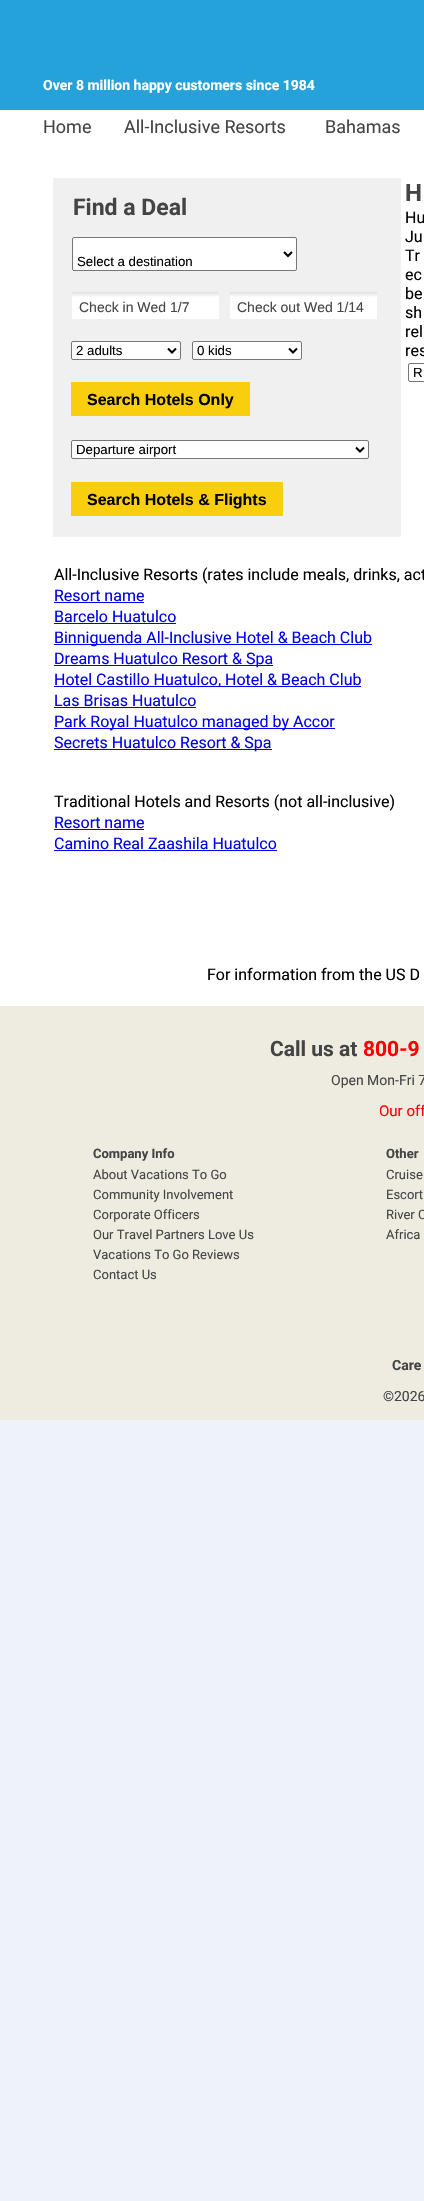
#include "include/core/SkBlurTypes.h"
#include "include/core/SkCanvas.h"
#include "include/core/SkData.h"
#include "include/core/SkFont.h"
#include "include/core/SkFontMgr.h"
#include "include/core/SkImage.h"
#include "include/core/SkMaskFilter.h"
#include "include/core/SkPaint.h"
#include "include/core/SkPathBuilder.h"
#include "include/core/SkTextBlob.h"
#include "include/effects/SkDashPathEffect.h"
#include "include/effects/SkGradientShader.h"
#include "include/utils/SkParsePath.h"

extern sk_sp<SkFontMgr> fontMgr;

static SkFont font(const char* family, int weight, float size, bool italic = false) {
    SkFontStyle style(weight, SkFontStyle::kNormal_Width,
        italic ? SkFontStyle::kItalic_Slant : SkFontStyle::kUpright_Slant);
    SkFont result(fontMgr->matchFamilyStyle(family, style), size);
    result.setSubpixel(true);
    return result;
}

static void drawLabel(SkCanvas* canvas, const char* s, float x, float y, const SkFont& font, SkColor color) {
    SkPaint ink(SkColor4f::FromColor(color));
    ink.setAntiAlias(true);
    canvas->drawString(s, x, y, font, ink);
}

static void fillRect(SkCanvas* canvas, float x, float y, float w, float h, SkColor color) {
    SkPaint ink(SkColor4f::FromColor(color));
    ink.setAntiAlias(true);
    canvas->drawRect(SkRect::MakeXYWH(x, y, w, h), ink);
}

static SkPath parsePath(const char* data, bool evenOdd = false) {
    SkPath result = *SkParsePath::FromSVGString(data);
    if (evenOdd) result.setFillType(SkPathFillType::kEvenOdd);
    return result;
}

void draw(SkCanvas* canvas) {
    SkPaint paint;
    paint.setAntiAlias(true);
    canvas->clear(0xFFEEF3FA);
    fillRect(canvas, 0, 110, 424, 896, 0xFFFFFFFF);
    fillRect(canvas, 0, 0, 424, 110, 0xFF25A2DA);
    SkFont font1 = font("Roboto", 700, 14);
    drawLabel(canvas, "Over 8 million happy customers since 1984", 43, 90, font1, 0xFFFFFFFF);
    SkFont font2 = font("Roboto", 400, 18);
    drawLabel(canvas, "Home", 43, 133, font2, 0xFF444444);
    drawLabel(canvas, "All-Inclusive Resorts", 124, 133, font2, 0xFF444444);
    drawLabel(canvas, "Bahamas", 325, 133, font2, 0xFF444444);
    fillRect(canvas, 53, 178, 348, 359, 0xFFF0F0F0);
    SkFont font3 = font("Roboto", 700, 23);
    drawLabel(canvas, "Find a Deal", 73, 215, font3, 0xFF444444);
    paint.setColor(0xFFFFFFFF);
    canvas->drawRoundRect(SkRect::MakeXYWH(72.5f, 237.5f, 224, 33), 1.5f, 1.5f, paint);
    paint.setStroke(true);
    paint.setStrokeWidth(1);
    paint.setColor(0xFF767676);
    canvas->drawRoundRect(SkRect::MakeXYWH(72.5f, 237.5f, 224, 33), 1.5f, 1.5f, paint);
    paint.setStrokeWidth(2);
    paint.setColor(0xFF000000);
    canvas->drawPath(parsePath("M284 252L288 256L292 252"), paint);
    SkFont font4 = font("Liberation Sans", 400, 13.25f);
    drawLabel(canvas, "Select a destination", 77, 266, font4, 0xFF000000);
    paint.setStroke(false);
    {
        const SkColor colors[] = {0xFFDEE0E0, 0xFFFFFFFF, 0xFFFFFFFF};
        const float stops[] = {0, 0.2f, 1};
        const SkPoint ends[] = {{146, 292}, {146, 319}};
        paint.setShader(SkGradientShader::MakeLinear(ends, colors, stops, 3, SkTileMode::kClamp));
        paint.setAlpha(255);
    }
    canvas->drawRect(SkRect::MakeXYWH(72, 292, 147, 27), paint);
    SkFont font5 = font("Liberation Sans", 400, 14);
    drawLabel(canvas, "Check in Wed 1/7", 79, 312, font5, 0xFF444444);
    {
        const SkColor colors[] = {0xFFDEE0E0, 0xFFFFFFFF, 0xFFFFFFFF};
        const float stops[] = {0, 0.2f, 1};
        const SkPoint ends[] = {{304, 292}, {304, 319}};
        paint.setShader(SkGradientShader::MakeLinear(ends, colors, stops, 3, SkTileMode::kClamp));
        paint.setAlpha(255);
    }
    canvas->drawRect(SkRect::MakeXYWH(230, 292, 147, 27), paint);
    drawLabel(canvas, "Check out Wed 1/14", 237, 312, font5, 0xFF444444);
    paint.setShader(nullptr);
    paint.setColor(0xFFFFFFFF);
    canvas->drawRoundRect(SkRect::MakeXYWH(71.5f, 341.5f, 109, 18), 1.5f, 1.5f, paint);
    paint.setStroke(true);
    paint.setStrokeWidth(1);
    paint.setColor(0xFF767676);
    canvas->drawRoundRect(SkRect::MakeXYWH(71.5f, 341.5f, 109, 18), 1.5f, 1.5f, paint);
    paint.setStrokeWidth(2);
    paint.setColor(0xFF000000);
    canvas->drawPath(parsePath("M168 348.5L172 352.5L176 348.5"), paint);
    drawLabel(canvas, "2 adults", 76, 355, font4, 0xFF000000);
    paint.setStroke(false);
    paint.setColor(0xFFFFFFFF);
    canvas->drawRoundRect(SkRect::MakeXYWH(192.5f, 341.5f, 109, 18), 1.5f, 1.5f, paint);
    paint.setStroke(true);
    paint.setStrokeWidth(1);
    paint.setColor(0xFF767676);
    canvas->drawRoundRect(SkRect::MakeXYWH(192.5f, 341.5f, 109, 18), 1.5f, 1.5f, paint);
    paint.setStrokeWidth(2);
    paint.setColor(0xFF000000);
    canvas->drawPath(parsePath("M289 348.5L293 352.5L297 348.5"), paint);
    drawLabel(canvas, "0 kids", 197, 355, font4, 0xFF000000);
    fillRect(canvas, 71, 382, 179, 34, 0xFFF9CE0C);
    SkFont font6 = font("Liberation Sans", 700, 16);
    drawLabel(canvas, "Search Hotels Only", 87, 405, font6, 0xFF000000);
    paint.setStroke(false);
    paint.setColor(0xFFFFFFFF);
    canvas->drawRoundRect(SkRect::MakeXYWH(71.5f, 440.5f, 297, 18), 1.5f, 1.5f, paint);
    paint.setStroke(true);
    paint.setStrokeWidth(1);
    paint.setColor(0xFF767676);
    canvas->drawRoundRect(SkRect::MakeXYWH(71.5f, 440.5f, 297, 18), 1.5f, 1.5f, paint);
    paint.setStrokeWidth(2);
    paint.setColor(0xFF000000);
    canvas->drawPath(parsePath("M356 447.5L360 451.5L364 447.5"), paint);
    drawLabel(canvas, "Departure airport", 76, 454, font4, 0xFF000000);
    fillRect(canvas, 71, 482, 212, 34, 0xFFF9CE0C);
    drawLabel(canvas, "Search Hotels & Flights", 87, 505, font6, 0xFF000000);
    SkFont font7 = font("Roboto", 700, 24);
    drawLabel(canvas, "H", 405, 201, font7, 0xFF444444);
    SkFont font8 = font("Roboto", 400, 16);
    drawLabel(canvas, "Hu", 405, 223, font8, 0xFF000000);
    drawLabel(canvas, "Ju", 405, 242, font8, 0xFF000000);
    drawLabel(canvas, "Tr", 405, 261, font8, 0xFF000000);
    drawLabel(canvas, "ec", 405, 280, font8, 0xFF000000);
    drawLabel(canvas, "be", 405, 299, font8, 0xFF000000);
    drawLabel(canvas, "sh", 405, 318, font8, 0xFF000000);
    drawLabel(canvas, "rel", 405, 337, font8, 0xFF000000);
    drawLabel(canvas, "res", 405, 356, font8, 0xFF000000);
    paint.setStrokeWidth(1);
    paint.setColor(0xFF767676);
    canvas->drawRoundRect(SkRect::MakeXYWH(408.5f, 363.5f, 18, 18), 1.5f, 1.5f, paint);
    drawLabel(canvas, "R", 413, 377, font4, 0xFF000000);
    drawLabel(canvas, "All-Inclusive Resorts (rates include meals, drinks, act", 54, 580, font8, 0xFF000000);
    drawLabel(canvas, "Resort name", 54, 601, font8, 0xFF0000EE);
    fillRect(canvas, 54, 602, 90, 1, 0xFF0000EE);
    drawLabel(canvas, "Barcelo Huatulco", 54, 622, font8, 0xFF0000EE);
    fillRect(canvas, 54, 623, 122, 1, 0xFF0000EE);
    fillRect(canvas, 54, 644, 318, 1, 0xFF0000EE);
    drawLabel(canvas, "Binniguenda All-Inclusive Hotel & Beach Club", 54, 643, font8, 0xFF0000EE);
    fillRect(canvas, 54, 665, 219, 1, 0xFF0000EE);
    drawLabel(canvas, "Dreams Huatulco Resort & Spa", 54, 664, font8, 0xFF0000EE);
    fillRect(canvas, 54, 686, 307, 1, 0xFF0000EE);
    drawLabel(canvas, "Hotel Castillo Huatulco, Hotel & Beach Club", 54, 685, font8, 0xFF0000EE);
    drawLabel(canvas, "Las Brisas Huatulco", 54, 706, font8, 0xFF0000EE);
    fillRect(canvas, 54, 707, 142, 1, 0xFF0000EE);
    fillRect(canvas, 54, 728, 281, 1, 0xFF0000EE);
    drawLabel(canvas, "Park Royal Huatulco managed by Accor", 54, 727, font8, 0xFF0000EE);
    fillRect(canvas, 54, 749, 218, 1, 0xFF0000EE);
    drawLabel(canvas, "Secrets Huatulco Resort & Spa", 54, 748, font8, 0xFF0000EE);
    drawLabel(canvas, "Traditional Hotels and Resorts (not all-inclusive)", 54, 807, font8, 0xFF000000);
    drawLabel(canvas, "Resort name", 54, 828, font8, 0xFF0000EE);
    fillRect(canvas, 54, 829, 90, 1, 0xFF0000EE);
    drawLabel(canvas, "Camino Real Zaashila Huatulco", 54, 849, font8, 0xFF0000EE);
    fillRect(canvas, 54, 850, 223, 1, 0xFF0000EE);
    drawLabel(canvas, "For information from the US D", 207, 980, font8, 0xFF000000);
    fillRect(canvas, 0, 1006, 424, 414, 0xFFEEECE1);
    SkFont font9 = font("Roboto", 700, 21);
    drawLabel(canvas, "Call us at", 270, 1056, font9, 0xFF444444);
    drawLabel(canvas, "800-9", 363, 1056, font9, 0xFFFF0000);
    SkFont font10 = font("Roboto", 400, 14);
    drawLabel(canvas, "Open Mon-Fri 7", 331, 1085, font10, 0xFF444444);
    SkFont font11 = font("Roboto", 400, 15);
    drawLabel(canvas, "Our off", 379, 1116, font11, 0xFFFF0000);
    SkFont font12 = font("Roboto", 700, 13);
    drawLabel(canvas, "Company Info", 93, 1158, font12, 0xFF444444);
    drawLabel(canvas, "Other", 386, 1158, font12, 0xFF444444);
    SkFont font13 = font("Roboto", 400, 13);
    drawLabel(canvas, "About Vacations To Go", 93, 1179, font13, 0xFF444444);
    drawLabel(canvas, "Community Involvement", 93, 1199, font13, 0xFF444444);
    drawLabel(canvas, "Corporate Officers", 93, 1219, font13, 0xFF444444);
    drawLabel(canvas, "Our Travel Partners Love Us", 93, 1239, font13, 0xFF444444);
    drawLabel(canvas, "Vacations To Go Reviews", 93, 1259, font13, 0xFF444444);
    drawLabel(canvas, "Contact Us", 93, 1279, font13, 0xFF444444);
    drawLabel(canvas, "Cruise", 386, 1179, font13, 0xFF444444);
    drawLabel(canvas, "Escort", 386, 1199, font13, 0xFF444444);
    drawLabel(canvas, "River C", 386, 1219, font13, 0xFF444444);
    drawLabel(canvas, "Africa", 386, 1239, font13, 0xFF444444);
    drawLabel(canvas, "Care", 392, 1370, font1, 0xFF444444);
    drawLabel(canvas, "©2026", 383, 1401, font10, 0xFF444444);
}
